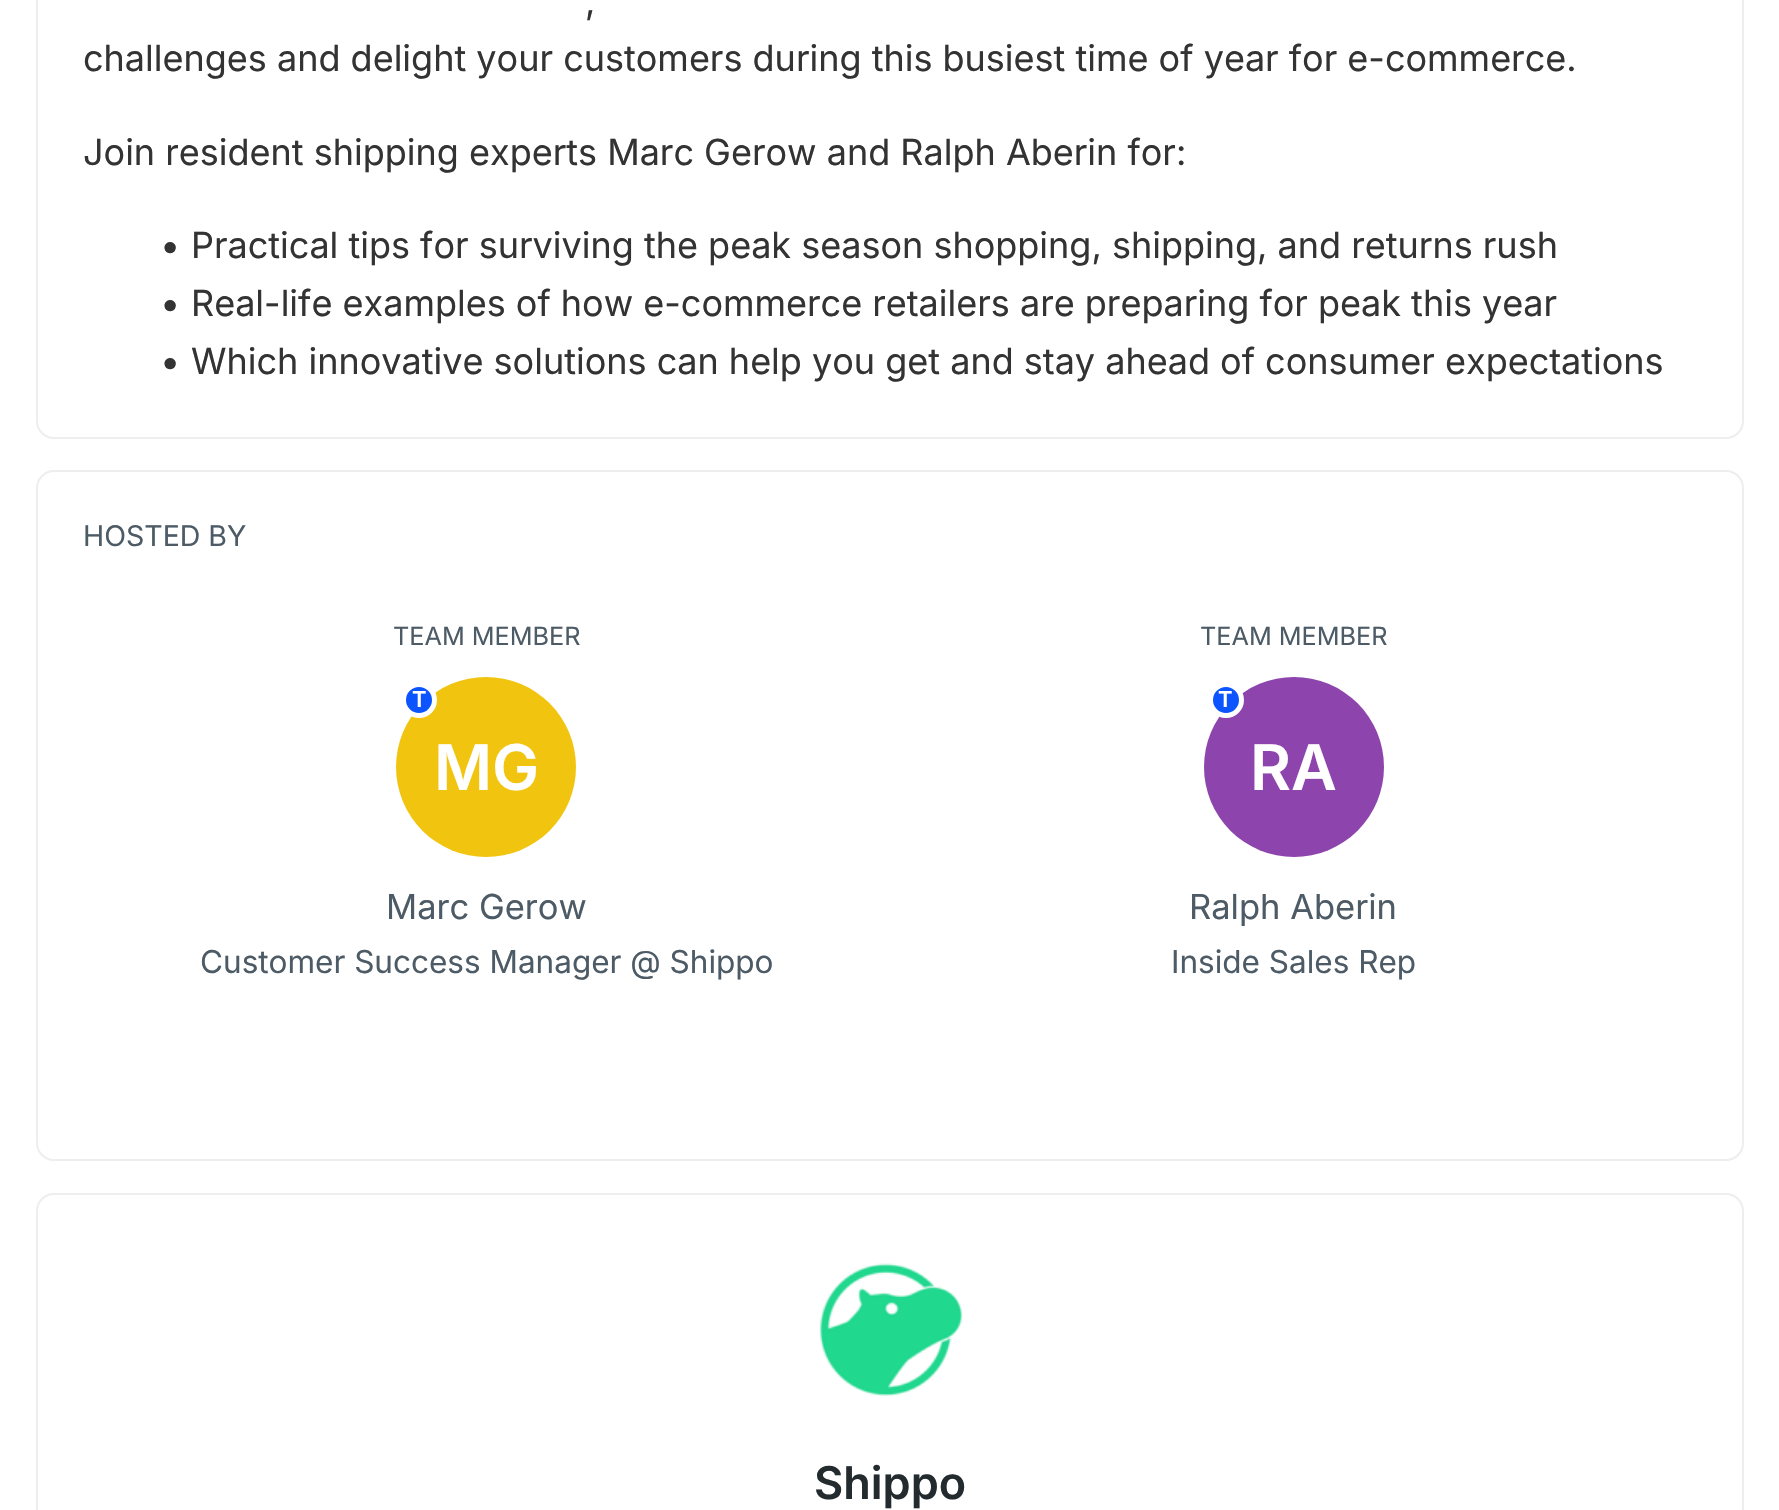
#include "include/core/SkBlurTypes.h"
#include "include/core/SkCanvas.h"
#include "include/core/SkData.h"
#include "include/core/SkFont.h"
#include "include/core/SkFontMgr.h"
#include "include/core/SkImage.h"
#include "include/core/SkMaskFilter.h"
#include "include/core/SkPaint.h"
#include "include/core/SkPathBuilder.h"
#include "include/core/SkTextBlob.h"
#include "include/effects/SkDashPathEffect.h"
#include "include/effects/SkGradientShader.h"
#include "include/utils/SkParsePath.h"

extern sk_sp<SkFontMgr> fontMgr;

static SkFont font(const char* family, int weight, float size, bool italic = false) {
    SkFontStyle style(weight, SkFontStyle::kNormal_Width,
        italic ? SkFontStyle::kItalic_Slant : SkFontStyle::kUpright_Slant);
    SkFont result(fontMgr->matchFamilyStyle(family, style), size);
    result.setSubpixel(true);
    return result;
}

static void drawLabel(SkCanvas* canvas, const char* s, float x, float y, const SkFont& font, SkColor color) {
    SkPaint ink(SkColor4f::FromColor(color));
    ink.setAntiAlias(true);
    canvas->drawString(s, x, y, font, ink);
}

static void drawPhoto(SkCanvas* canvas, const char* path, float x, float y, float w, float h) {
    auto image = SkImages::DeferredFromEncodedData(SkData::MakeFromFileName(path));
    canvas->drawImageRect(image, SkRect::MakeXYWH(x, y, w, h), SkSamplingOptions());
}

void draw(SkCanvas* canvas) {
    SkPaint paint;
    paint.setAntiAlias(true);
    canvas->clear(0xFFFFFFFF);
    paint.setStroke(true);
    paint.setStrokeWidth(2);
    paint.setColor(0xFFEEEEEE);
    canvas->drawRoundRect(SkRect::MakeXYWH(37, -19, 1706, 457), 17, 17, paint);
    SkFont font1 = font("Inter", 400, 36);
    drawLabel(canvas, ",", 585, 14, font1, 0xFF333333);
    drawLabel(canvas, "challenges and delight your customers during this busiest time of year for e-commerce.", 83, 71, font1, 0xFF333333);
    drawLabel(canvas, "Join resident shipping experts Marc Gerow and Ralph Aberin for:", 83, 165, font1, 0xFF333333);
    drawLabel(canvas, "•", 160, 258, font1, 0xFF333333);
    drawLabel(canvas, "Practical tips for surviving the peak season shopping, shipping, and returns rush", 191, 258, font1, 0xFF333333);
    drawLabel(canvas, "•", 160, 316, font1, 0xFF333333);
    drawLabel(canvas, "Real-life examples of how e-commerce retailers are preparing for peak this year", 191, 316, font1, 0xFF333333);
    drawLabel(canvas, "•", 160, 374, font1, 0xFF333333);
    drawLabel(canvas, "Which innovative solutions can help you get and stay ahead of consumer expectations", 191, 374, font1, 0xFF333333);
    canvas->drawRoundRect(SkRect::MakeXYWH(37, 471, 1706, 689), 17, 17, paint);
    SkFont font2 = font("Inter", 400, 28.5f);
    drawLabel(canvas, "HOSTED BY", 83, 546, font2, 0xFF4D5B66);
    SkFont font3 = font("Inter", 400, 25.25f);
    drawLabel(canvas, "TEAM MEMBER", 393, 645, font3, 0xFF4D5B66);
    paint.setStroke(false);
    paint.setColor(0xFFF1C40F);
    canvas->drawCircle(486, 767, 90, paint);
    paint.setColor(0xFF0B54FE);
    canvas->drawCircle(419, 700, 15.5f, paint);
    paint.setStroke(true);
    paint.setStrokeWidth(5);
    paint.setColor(0xFFFFFFFF);
    canvas->drawCircle(419, 700, 15.5f, paint);
    SkFont font4 = font("Inter", 600, 22);
    drawLabel(canvas, "T", 412, 707, font4, 0xFFFFFFFF);
    SkFont font5 = font("Inter", 600, 63);
    drawLabel(canvas, "MG", 434, 790, font5, 0xFFFFFFFF);
    SkFont font6 = font("Inter", 400, 34.5f);
    drawLabel(canvas, "Marc Gerow", 386, 919, font6, 0xFF4D5B66);
    SkFont font7 = font("Inter", 400, 31.5f);
    drawLabel(canvas, "Customer Success Manager @ Shippo", 200, 973, font7, 0xFF4D5B66);
    drawLabel(canvas, "TEAM MEMBER", 1200, 645, font3, 0xFF4D5B66);
    paint.setStroke(false);
    paint.setColor(0xFF8E44AD);
    canvas->drawCircle(1294, 767, 90, paint);
    paint.setColor(0xFF0B54FE);
    canvas->drawCircle(1226, 700, 15.5f, paint);
    paint.setStroke(true);
    paint.setColor(0xFFFFFFFF);
    canvas->drawCircle(1226, 700, 15.5f, paint);
    drawLabel(canvas, "T", 1218, 707, font4, 0xFFFFFFFF);
    drawLabel(canvas, "RA", 1250, 790, font5, 0xFFFFFFFF);
    drawLabel(canvas, "Ralph Aberin", 1189, 919, font6, 0xFF4D5B66);
    drawLabel(canvas, "Inside Sales Rep", 1171, 973, font7, 0xFF4D5B66);
    paint.setStrokeWidth(2);
    paint.setColor(0xFFEEEEEE);
    canvas->drawRoundRect(SkRect::MakeXYWH(37, 1194, 1706, 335), 17, 17, paint);
    drawPhoto(canvas, "assets/img1.png", 819, 1263, 144, 133);
    SkFont font8 = font("Inter", 600, 45);
    drawLabel(canvas, "Shippo", 814, 1499, font8, 0xFF232B2F);
}
